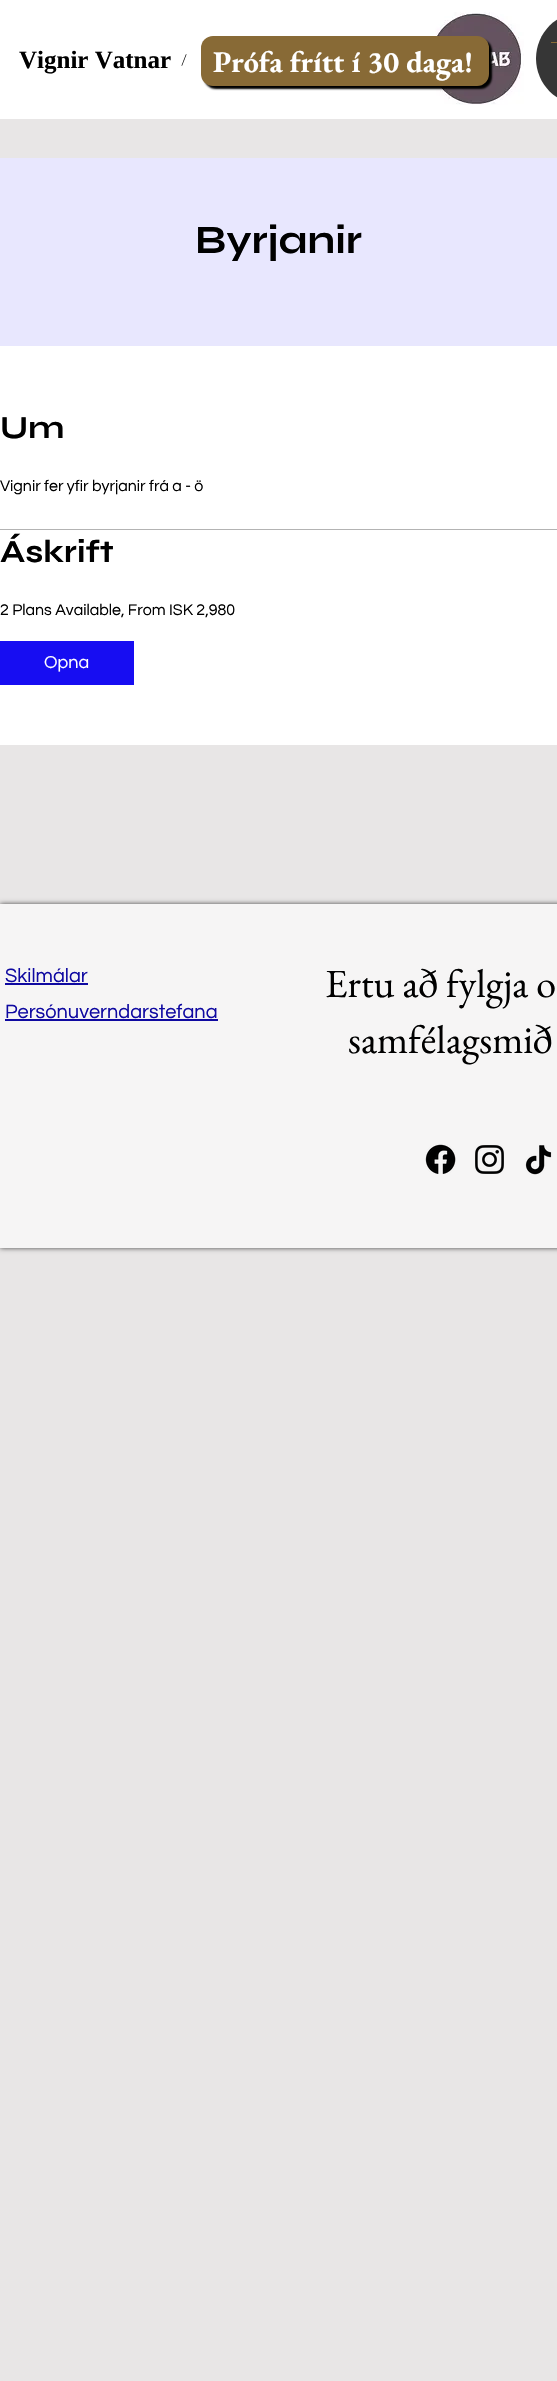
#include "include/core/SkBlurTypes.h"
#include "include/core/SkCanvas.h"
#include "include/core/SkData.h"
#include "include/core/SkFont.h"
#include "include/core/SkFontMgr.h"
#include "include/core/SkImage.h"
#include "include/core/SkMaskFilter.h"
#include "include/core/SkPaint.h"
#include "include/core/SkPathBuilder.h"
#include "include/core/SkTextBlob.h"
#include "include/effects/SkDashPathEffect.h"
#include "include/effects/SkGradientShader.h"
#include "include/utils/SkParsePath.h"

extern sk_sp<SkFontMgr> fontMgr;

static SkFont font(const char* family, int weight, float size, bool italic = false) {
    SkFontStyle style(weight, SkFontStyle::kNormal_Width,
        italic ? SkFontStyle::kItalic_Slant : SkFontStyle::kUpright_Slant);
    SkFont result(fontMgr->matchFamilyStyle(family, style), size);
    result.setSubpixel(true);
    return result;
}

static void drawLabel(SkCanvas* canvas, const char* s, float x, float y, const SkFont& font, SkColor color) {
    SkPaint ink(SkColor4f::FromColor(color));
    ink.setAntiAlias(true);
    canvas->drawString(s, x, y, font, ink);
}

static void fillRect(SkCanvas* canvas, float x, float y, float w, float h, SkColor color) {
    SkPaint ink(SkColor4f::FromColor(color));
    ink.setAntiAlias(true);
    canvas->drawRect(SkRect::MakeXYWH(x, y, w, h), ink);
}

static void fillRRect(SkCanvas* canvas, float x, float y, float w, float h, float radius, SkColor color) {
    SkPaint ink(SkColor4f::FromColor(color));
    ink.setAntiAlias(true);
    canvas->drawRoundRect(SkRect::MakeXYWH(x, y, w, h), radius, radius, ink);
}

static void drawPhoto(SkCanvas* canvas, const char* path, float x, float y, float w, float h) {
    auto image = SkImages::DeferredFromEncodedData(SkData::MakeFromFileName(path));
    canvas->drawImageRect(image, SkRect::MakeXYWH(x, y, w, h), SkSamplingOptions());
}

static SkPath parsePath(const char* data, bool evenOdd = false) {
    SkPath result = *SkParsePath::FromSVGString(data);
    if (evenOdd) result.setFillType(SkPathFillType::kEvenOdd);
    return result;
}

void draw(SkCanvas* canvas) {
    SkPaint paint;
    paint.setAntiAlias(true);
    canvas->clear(0xFFE8E6E6);
    fillRect(canvas, 0, 0, 557, 119, 0xFFFFFFFF);
    SkFont font1 = font("Liberation Serif", 700, 25);
    drawLabel(canvas, "Vignir Vatnar", 19, 68, font1, 0xFF000000);
    paint.setColor(0xFF000000);
    canvas->drawPath(parsePath("M186 54L186.5 54.5L182 66L181.5 65.5Z"), paint);
    drawPhoto(canvas, "assets/img1.png", 428, 12, 96, 93);
    drawPhoto(canvas, "assets/img2.png", 536, 19, 21, 79);
    fillRect(canvas, 551, 42, 6, 1, 0xFF886A36);
    paint.setMaskFilter(SkMaskFilter::MakeBlur(kNormal_SkBlurStyle, 1));
    canvas->drawRoundRect(SkRect::MakeXYWH(204, 39, 288, 50), 12, 12, paint);
    paint.setMaskFilter(nullptr);
    fillRRect(canvas, 201, 36, 288, 50, 12, 0xFF886A36);
    SkFont font2 = font("EB Garamond", 700, 30);
    drawLabel(canvas, "Prófa frítt í 30 daga!", 213, 72, font2, 0xFFFFFFFF);
    fillRect(canvas, 0, 346, 557, 399, 0xFFFFFFFF);
    fillRect(canvas, 0, 158, 557, 188, 0xFFE8E7FE);
    SkFont font3 = font("Syne", 700, 40);
    drawLabel(canvas, "Byrjanir", 195, 253, font3, 0xFF000000);
    fillRect(canvas, 0, 529, 557, 1, 0xFFB3B3B3);
    SkFont font4 = font("Syne", 700, 32);
    drawLabel(canvas, "Um", 0, 438, font4, 0xFF000000);
    SkFont font5 = font("Questrial", 400, 16);
    drawLabel(canvas, "Vignir fer yfir byrjanir frá a - ö", 0, 491, font5, 0xFF000000);
    drawLabel(canvas, "Áskrift", 0, 562, font4, 0xFF000000);
    drawLabel(canvas, "2 Plans Available, From ISK 2,980", 0, 615, font5, 0xFF000000);
    fillRect(canvas, 0, 641, 134, 44, 0xFF170DF2);
    SkFont font6 = font("Questrial", 400, 18);
    drawLabel(canvas, "Opna", 44, 668, font6, 0xFFFFFFFF);
    paint.setColor(0xB3000000);
    paint.setMaskFilter(SkMaskFilter::MakeBlur(kNormal_SkBlurStyle, 2.5f));
    canvas->drawRect(SkRect::MakeXYWH(0, 904, 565, 344), paint);
    paint.setMaskFilter(nullptr);
    fillRect(canvas, 0, 904, 557, 344, 0xFFF6F5F5);
    SkFont font7 = font("Questrial", 400, 20);
    drawLabel(canvas, "Skilmálar", 5, 982, font7, 0xFF0F09A1);
    fillRect(canvas, 5, 983, 83, 2, 0xFF0F09A1);
    SkFont font8 = font("EB Garamond", 400, 40);
    drawLabel(canvas, "Ertu að fylgja o", 325, 997, font8, 0xFF000000);
    drawLabel(canvas, "samfélagsmið", 348, 1053, font8, 0xFF000000);
    drawLabel(canvas, "Persónuverndarstefana", 5, 1018, font7, 0xFF0F09A1);
    fillRect(canvas, 5, 1019, 213, 2, 0xFF0F09A1);
    drawPhoto(canvas, "assets/img3.png", 425, 1144, 31, 30);
    drawPhoto(canvas, "assets/img4.png", 475, 1145, 29, 29);
    drawPhoto(canvas, "assets/img5.png", 525, 1145, 27, 30);
}
